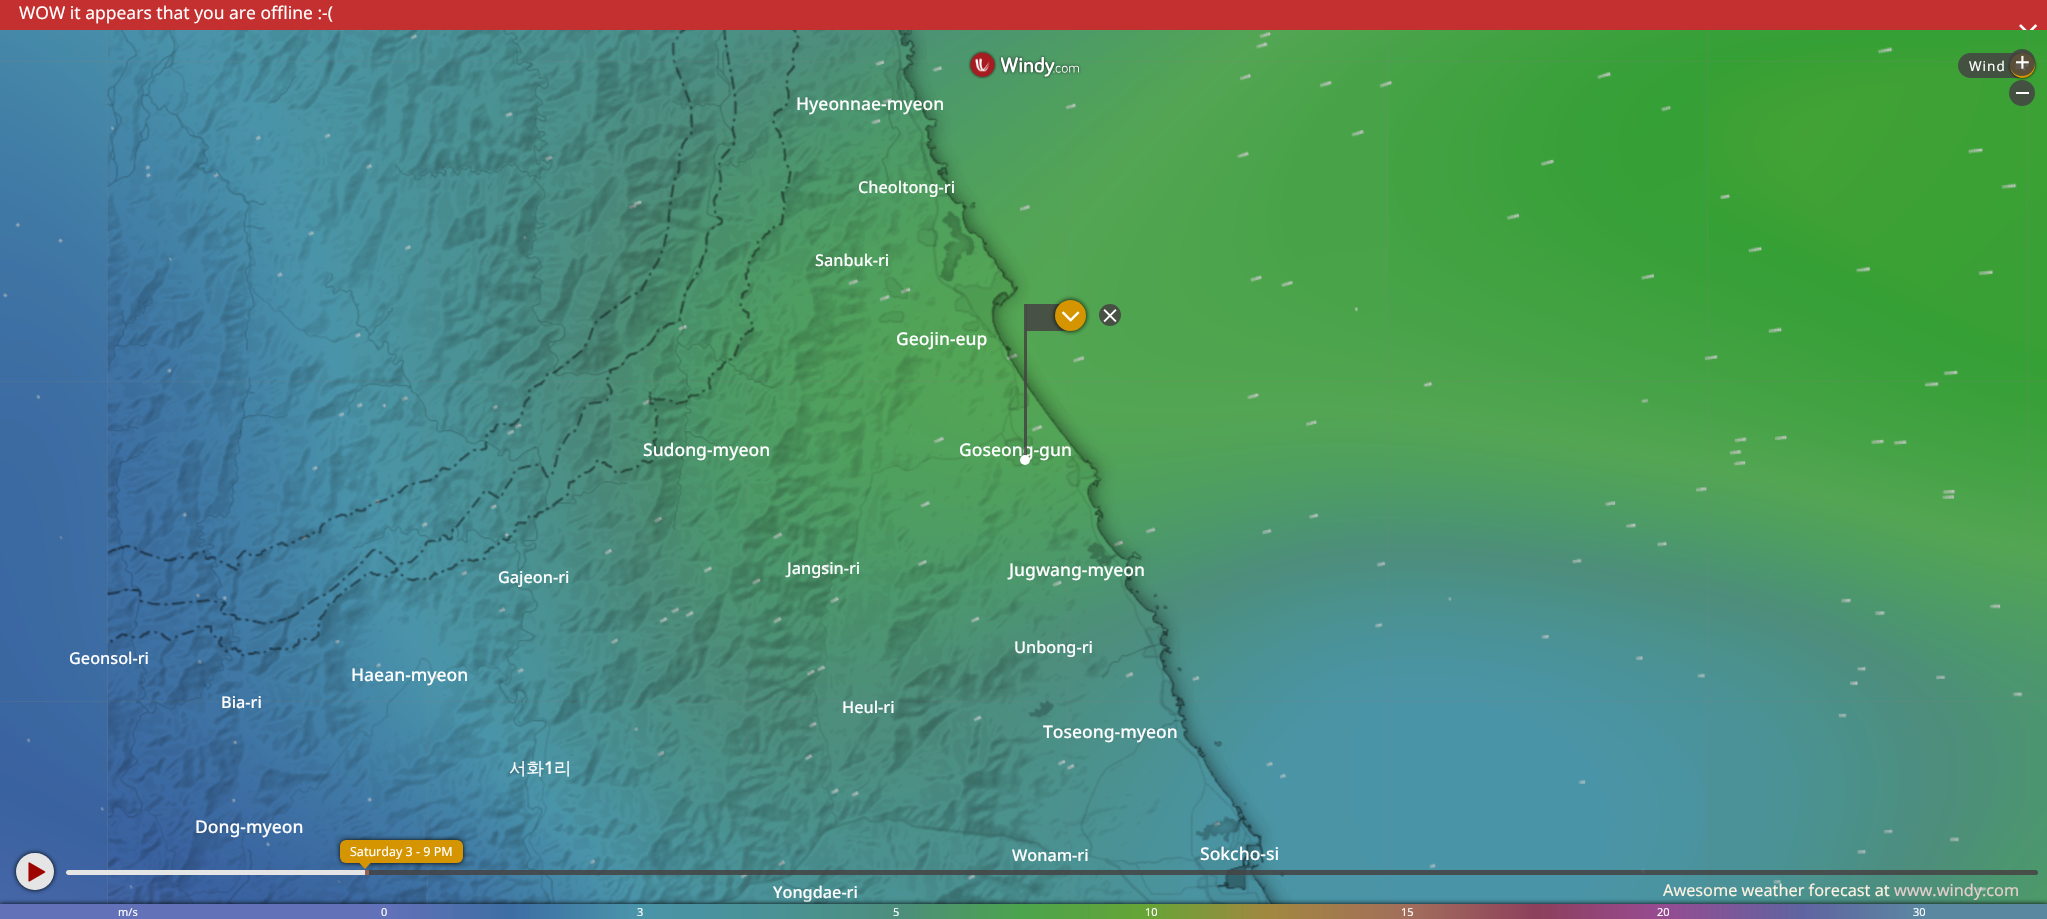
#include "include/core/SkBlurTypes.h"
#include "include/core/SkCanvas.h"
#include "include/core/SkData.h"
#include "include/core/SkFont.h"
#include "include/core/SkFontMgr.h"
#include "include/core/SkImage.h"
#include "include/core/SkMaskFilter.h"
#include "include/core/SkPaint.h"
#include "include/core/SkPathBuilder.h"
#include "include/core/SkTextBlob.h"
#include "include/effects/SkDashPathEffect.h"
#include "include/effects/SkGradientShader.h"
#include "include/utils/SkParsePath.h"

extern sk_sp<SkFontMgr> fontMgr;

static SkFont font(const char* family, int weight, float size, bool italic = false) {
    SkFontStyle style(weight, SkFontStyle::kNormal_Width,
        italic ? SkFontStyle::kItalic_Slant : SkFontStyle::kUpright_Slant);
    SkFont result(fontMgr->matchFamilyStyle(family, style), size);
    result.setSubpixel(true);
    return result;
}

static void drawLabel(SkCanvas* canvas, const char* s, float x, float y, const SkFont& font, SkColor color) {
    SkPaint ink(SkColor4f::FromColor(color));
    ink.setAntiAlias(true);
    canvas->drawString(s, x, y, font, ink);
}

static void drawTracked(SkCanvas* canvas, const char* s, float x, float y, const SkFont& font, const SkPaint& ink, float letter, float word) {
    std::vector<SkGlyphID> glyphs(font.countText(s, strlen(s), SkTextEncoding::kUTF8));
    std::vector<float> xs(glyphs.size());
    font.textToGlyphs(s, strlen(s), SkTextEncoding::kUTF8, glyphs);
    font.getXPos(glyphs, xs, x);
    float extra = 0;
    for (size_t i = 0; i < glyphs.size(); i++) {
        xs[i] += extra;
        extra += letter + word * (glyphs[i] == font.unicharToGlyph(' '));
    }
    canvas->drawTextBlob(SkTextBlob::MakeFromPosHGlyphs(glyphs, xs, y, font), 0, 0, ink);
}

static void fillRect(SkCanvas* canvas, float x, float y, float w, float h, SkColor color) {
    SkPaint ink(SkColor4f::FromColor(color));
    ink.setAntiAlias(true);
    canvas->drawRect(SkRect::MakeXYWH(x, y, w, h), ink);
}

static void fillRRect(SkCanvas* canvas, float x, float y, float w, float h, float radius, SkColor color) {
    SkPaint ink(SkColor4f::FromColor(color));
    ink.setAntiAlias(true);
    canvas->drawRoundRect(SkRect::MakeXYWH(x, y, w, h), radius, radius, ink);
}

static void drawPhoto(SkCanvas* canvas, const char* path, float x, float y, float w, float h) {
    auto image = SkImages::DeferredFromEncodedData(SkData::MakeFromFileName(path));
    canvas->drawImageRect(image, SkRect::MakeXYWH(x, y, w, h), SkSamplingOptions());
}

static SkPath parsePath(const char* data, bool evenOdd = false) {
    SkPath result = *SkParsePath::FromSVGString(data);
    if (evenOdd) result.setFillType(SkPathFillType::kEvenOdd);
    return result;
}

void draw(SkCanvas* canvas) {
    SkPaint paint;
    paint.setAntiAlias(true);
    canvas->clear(0xFF808080);
    fillRect(canvas, 0, 0, 2047, 30, 0xFFC42F2F);
    SkFont font1 = font("Noto Sans", 400, 17.5f);
    drawLabel(canvas, "WOW it appears that you are offline :-(", 19, 19, font1, 0xFFFFFFFF);
    drawPhoto(canvas, "assets/img1.png", 2019, 24, 19, 6);
    drawPhoto(canvas, "assets/img17.png", 747, 61, 321, 321);
    drawPhoto(canvas, "assets/img18.png", 1067, 61, 321, 321);
    drawPhoto(canvas, "assets/img9.png", 747, 30, 321, 32);
    drawPhoto(canvas, "assets/img25.png", 747, 381, 321, 321);
    drawPhoto(canvas, "assets/img16.png", 427, 61, 321, 321);
    drawPhoto(canvas, "assets/img8.png", 427, 30, 321, 32);
    drawPhoto(canvas, "assets/img24.png", 427, 381, 321, 321);
    drawPhoto(canvas, "assets/img15.png", 107, 61, 321, 321);
    drawPhoto(canvas, "assets/img7.png", 107, 30, 321, 32);
    drawPhoto(canvas, "assets/img6.png", 0, 30, 108, 31);
    drawPhoto(canvas, "assets/img10.png", 1067, 30, 321, 32);
    drawPhoto(canvas, "assets/img26.png", 1067, 381, 321, 321);
    drawPhoto(canvas, "assets/img19.png", 1387, 61, 321, 321);
    drawPhoto(canvas, "assets/img11.png", 1387, 30, 321, 32);
    drawPhoto(canvas, "assets/img27.png", 1387, 381, 321, 321);
    drawPhoto(canvas, "assets/img20.png", 1707, 61, 321, 321);
    drawPhoto(canvas, "assets/img12.png", 1707, 30, 321, 32);
    drawPhoto(canvas, "assets/img33.png", 747, 701, 321, 203);
    drawPhoto(canvas, "assets/img32.png", 427, 701, 321, 203);
    drawPhoto(canvas, "assets/img23.png", 107, 381, 321, 321);
    drawPhoto(canvas, "assets/img14.png", 0, 61, 108, 321);
    drawPhoto(canvas, "assets/img31.png", 107, 701, 321, 203);
    drawPhoto(canvas, "assets/img22.png", 0, 381, 108, 321);
    drawPhoto(canvas, "assets/img34.png", 1067, 701, 321, 203);
    drawPhoto(canvas, "assets/img35.png", 1387, 701, 321, 203);
    drawPhoto(canvas, "assets/img28.png", 1707, 381, 321, 321);
    drawPhoto(canvas, "assets/img30.png", 0, 701, 108, 203);
    drawPhoto(canvas, "assets/img36.png", 1707, 701, 321, 203);
    drawPhoto(canvas, "assets/img52.png", 2, 31, 2022, 861);
    drawPhoto(canvas, "assets/img43.png", 747, 61, 300, 321);
    drawPhoto(canvas, "assets/img2.png", 968, 50, 29, 29);
    drawPhoto(canvas, "assets/img3.png", 999, 55, 83, 24);
    drawPhoto(canvas, "assets/img21.png", 2027, 61, 20, 321);
    drawPhoto(canvas, "assets/img13.png", 2027, 30, 20, 32);
    fillRRect(canvas, 1958, 53, 77, 25, 12.5f, 0xD6444141);
    SkFont font2 = font("Noto Sans", 400, 13.5f);
    paint.setColor(0xFFFFFFFF);
    drawTracked(canvas, "Wind", 1969, 71, font2, paint, 1, 0);
    paint.setColor(0xFF000000);
    paint.setMaskFilter(SkMaskFilter::MakeBlur(kNormal_SkBlurStyle, 1.5f));
    canvas->drawRoundRect(SkRect::MakeXYWH(2010, 53, 25, 25), 12.5f, 12.5f, paint);
    paint.setMaskFilter(nullptr);
    paint.setColor(0xFFD49500);
    canvas->drawCircle(2022.5f, 65.5f, 12.5f, paint);
    drawPhoto(canvas, "assets/img4.png", 2015, 61, 14, 10);
    fillRRect(canvas, 2009, 49, 26, 27, 13, 0xD6444141);
    drawPhoto(canvas, "assets/img5.png", 2016, 55, 13, 14);
    paint.setColor(0xD6444141);
    canvas->drawCircle(2022, 93, 13, paint);
    fillRect(canvas, 2016, 92, 13, 2, 0xFFFFFFFF);
    drawPhoto(canvas, "assets/img29.png", 2027, 381, 20, 321);
    drawPhoto(canvas, "assets/img37.png", 2027, 701, 20, 203);
    drawPhoto(canvas, "assets/img38.png", 108, 30, 320, 31);
    drawPhoto(canvas, "assets/img39.png", 428, 30, 320, 31);
    drawPhoto(canvas, "assets/img40.png", 748, 30, 179, 31);
    drawPhoto(canvas, "assets/img46.png", 747, 381, 321, 321);
    drawPhoto(canvas, "assets/img42.png", 427, 61, 321, 321);
    drawPhoto(canvas, "assets/img45.png", 427, 381, 321, 321);
    drawPhoto(canvas, "assets/img41.png", 107, 61, 321, 321);
    drawPhoto(canvas, "assets/img44.png", 107, 381, 321, 321);
    drawPhoto(canvas, "assets/img47.png", 1067, 414, 127, 288);
    drawPhoto(canvas, "assets/img48.png", 108, 701, 320, 203);
    drawPhoto(canvas, "assets/img49.png", 428, 701, 320, 203);
    drawPhoto(canvas, "assets/img50.png", 748, 701, 320, 203);
    drawPhoto(canvas, "assets/img51.png", 1068, 701, 224, 203);
    SkFont font3 = font("Noto Sans", 500, 17.5f);
    drawLabel(canvas, "Hyeonnae-myeon", 796, 110, font3, 0xFFFFFFFF);
    SkFont font4 = font("Noto Sans", 500, 16.25f);
    drawLabel(canvas, "Cheoltong-ri", 858, 193, font4, 0xFFFFFFFF);
    drawLabel(canvas, "Sanbuk-ri", 815, 266, font4, 0xFFFFFFFF);
    drawLabel(canvas, "Geojin-eup", 896, 345, font3, 0xFFFFFFFF);
    drawLabel(canvas, "Sudong-myeon", 643, 456, font3, 0xFFFFFFFF);
    drawLabel(canvas, "Gajeon-ri", 498, 583, font4, 0xFFFFFFFF);
    drawLabel(canvas, "Goseong-gun", 959, 456, font3, 0xFFFFFFFF);
    drawLabel(canvas, "Jangsin-ri", 787, 574, font4, 0xFFFFFFFF);
    drawLabel(canvas, "Unbong-ri", 1014, 653, font4, 0xFFFFFFFF);
    drawLabel(canvas, "Jugwang-myeon", 1009, 576, font3, 0xFFFFFFFF);
    drawLabel(canvas, "Geonsol-ri", 69, 664, font4, 0xFFFFFFFF);
    drawLabel(canvas, "Haean-myeon", 351, 681, font3, 0xFFFFFFFF);
    drawLabel(canvas, "Bia-ri", 221, 708, font4, 0xFFFFFFFF);
    drawLabel(canvas, "Dong-myeon", 195, 833, font3, 0xFFFFFFFF);
    SkFont font5 = font("WenQuanYi Zen Hei", 500, 17.5f);
    drawLabel(canvas, "서화", 509, 774, font5, 0xFFFFFFFF);
    drawLabel(canvas, "1", 544, 774, font3, 0xFFFFFFFF);
    drawLabel(canvas, "리", 554, 774, font5, 0xFFFFFFFF);
    drawLabel(canvas, "Heul-ri", 842, 713, font4, 0xFFFFFFFF);
    drawLabel(canvas, "Wonam-ri", 1012, 861, font4, 0xFFFFFFFF);
    drawLabel(canvas, "Yongdae-ri", 773, 898, font4, 0xFFFFFFFF);
    drawLabel(canvas, "Toseong-myeon", 1043, 738, font3, 0xFFFFFFFF);
    drawLabel(canvas, "Sokcho-si", 1200, 860, font3, 0xFFFFFFFF);
    fillRect(canvas, 1024, 304, 3, 156, 0xD6444141);
    paint.setColor(0xFFFFFFFF);
    canvas->drawCircle(1025, 460, 5, paint);
    paint.setColor(0xD6444141);
    canvas->drawPath(parsePath("M1026 304H1062.5C1070 304 1076 310 1076 317.5C1076 325 1070 331 1062.5 331H1026Z"), paint);
    paint.setColor(0xFF000000);
    paint.setMaskFilter(SkMaskFilter::MakeBlur(kNormal_SkBlurStyle, 2.5f));
    canvas->drawRoundRect(SkRect::MakeXYWH(1055, 300, 31, 31), 15.5f, 15.5f, paint);
    paint.setMaskFilter(nullptr);
    paint.setColor(0xFFD49500);
    canvas->drawCircle(1070.5f, 315.5f, 15.5f, paint);
    drawPhoto(canvas, "assets/img53.png", 1061, 311, 19, 11);
    paint.setColor(0xFF465143);
    canvas->drawCircle(1110, 315, 11, paint);
    drawPhoto(canvas, "assets/img54.png", 1103, 309, 14, 14);
    paint.setColor(0xFF000000);
    paint.setMaskFilter(SkMaskFilter::MakeBlur(kNormal_SkBlurStyle, 2.5f));
    canvas->drawRoundRect(SkRect::MakeXYWH(16, 853, 38, 37), 18.5f, 18.5f, paint);
    paint.setMaskFilter(nullptr);
    fillRRect(canvas, 16, 853, 38, 37, 18.5f, 0xFFE5E5E5);
    drawPhoto(canvas, "assets/img55.png", 28, 862, 18, 20);
    paint.setMaskFilter(SkMaskFilter::MakeBlur(kNormal_SkBlurStyle, 2.5f));
    canvas->drawRoundRect(SkRect::MakeXYWH(340, 840, 123, 23), 6, 6, paint);
    paint.setMaskFilter(nullptr);
    fillRRect(canvas, 340, 840, 123, 23, 6, 0xFFD49500);
    SkFont font6 = font("Noto Sans", 400, 12.5f);
    drawLabel(canvas, "Saturday 3 - 9 PM", 350, 856, font6, 0xFFFFFFFF);
    paint.setColor(0xFFD49500);
    canvas->drawPath(parsePath("M359 862.5H371L365 869Z"), paint);
    fillRRect(canvas, 66, 870, 1972, 5, 2.5f, 0xD6444141);
    paint.setColor(0xFFE5E5E5);
    canvas->drawPath(parsePath("M68.5 870H365V875H68.5C67 875 66 874 66 872.5C66 871 67 870 68.5 870Z"), paint);
    fillRect(canvas, 365, 870, 4, 5, 0xFF946051);
    paint.setColor(0xFF000000);
    paint.setMaskFilter(SkMaskFilter::MakeBlur(kNormal_SkBlurStyle, 2.5f));
    canvas->drawRect(SkRect::MakeXYWH(0, 904, 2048, 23), paint);
    paint.setMaskFilter(nullptr);
    SkFont font7 = font("Noto Sans", 400, 16.25f);
    drawLabel(canvas, "Awesome weather forecast at", 1663, 896, font7, 0xFFFFF3E1);
    drawLabel(canvas, "www.windy.com", 1894, 896, font7, 0xFFE6CECE);
    {
        const SkColor colors[] = {0xFF6271B8, 0xFF6271B8, 0xFF3D6EA3, 0xFF4A94AA, 0xFF4A9294, 0xFF4D8E7C, 0xFF4CA44C, 0xFF67A436, 0xFFA28740, 0xFFA26D5C, 0xFF8D3F5C, 0xFF974B91, 0xFF5F64A0, 0xFF5B88A1, 0xFF5B88A1};
        const float stops[] = {0, 0.19f, 0.25f, 0.31f, 0.38f, 0.44f, 0.5f, 0.56f, 0.62f, 0.69f, 0.75f, 0.81f, 0.88f, 0.94f, 1};
        const SkPoint ends[] = {{0, 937}, {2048, 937}};
        paint.setShader(SkGradientShader::MakeLinear(ends, colors, stops, 15, SkTileMode::kClamp));
        paint.setAlpha(255);
    }
    canvas->drawRect(SkRect::MakeXYWH(0, 904, 2047, 15), paint);
    SkFont font8 = font("Noto Sans", 400, 11);
    drawLabel(canvas, "m/s", 118, 916, font8, 0xFFFFFFFF);
    drawLabel(canvas, "0", 381, 916, font8, 0xFFFFFFFF);
    drawLabel(canvas, "3", 637, 916, font8, 0xFFFFFFFF);
    drawLabel(canvas, "5", 893, 916, font8, 0xFFFFFFFF);
    drawLabel(canvas, "10", 1145, 916, font8, 0xFFFFFFFF);
    drawLabel(canvas, "15", 1401, 916, font8, 0xFFFFFFFF);
    drawLabel(canvas, "20", 1657, 916, font8, 0xFFFFFFFF);
    drawLabel(canvas, "30", 1913, 916, font8, 0xFFFFFFFF);
}
